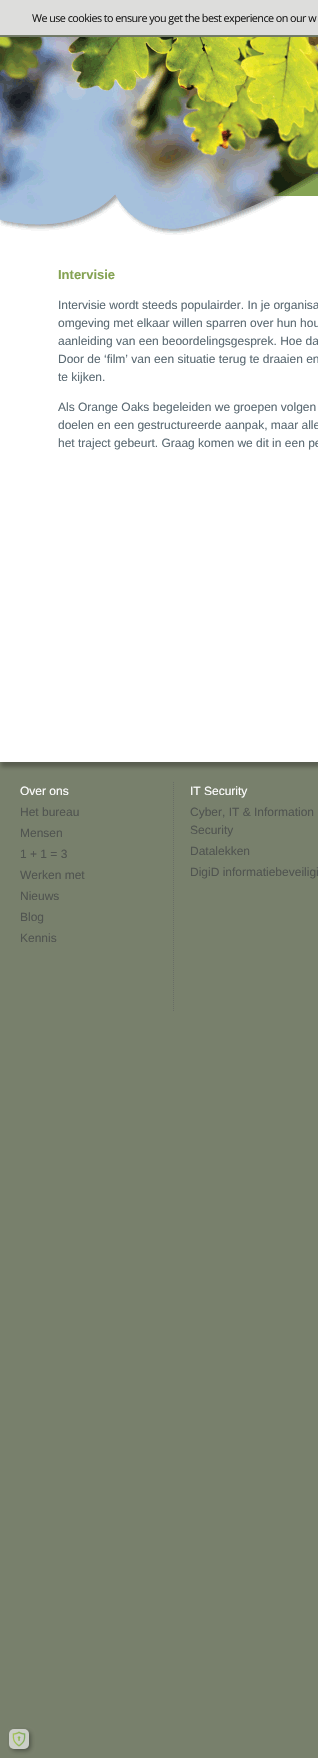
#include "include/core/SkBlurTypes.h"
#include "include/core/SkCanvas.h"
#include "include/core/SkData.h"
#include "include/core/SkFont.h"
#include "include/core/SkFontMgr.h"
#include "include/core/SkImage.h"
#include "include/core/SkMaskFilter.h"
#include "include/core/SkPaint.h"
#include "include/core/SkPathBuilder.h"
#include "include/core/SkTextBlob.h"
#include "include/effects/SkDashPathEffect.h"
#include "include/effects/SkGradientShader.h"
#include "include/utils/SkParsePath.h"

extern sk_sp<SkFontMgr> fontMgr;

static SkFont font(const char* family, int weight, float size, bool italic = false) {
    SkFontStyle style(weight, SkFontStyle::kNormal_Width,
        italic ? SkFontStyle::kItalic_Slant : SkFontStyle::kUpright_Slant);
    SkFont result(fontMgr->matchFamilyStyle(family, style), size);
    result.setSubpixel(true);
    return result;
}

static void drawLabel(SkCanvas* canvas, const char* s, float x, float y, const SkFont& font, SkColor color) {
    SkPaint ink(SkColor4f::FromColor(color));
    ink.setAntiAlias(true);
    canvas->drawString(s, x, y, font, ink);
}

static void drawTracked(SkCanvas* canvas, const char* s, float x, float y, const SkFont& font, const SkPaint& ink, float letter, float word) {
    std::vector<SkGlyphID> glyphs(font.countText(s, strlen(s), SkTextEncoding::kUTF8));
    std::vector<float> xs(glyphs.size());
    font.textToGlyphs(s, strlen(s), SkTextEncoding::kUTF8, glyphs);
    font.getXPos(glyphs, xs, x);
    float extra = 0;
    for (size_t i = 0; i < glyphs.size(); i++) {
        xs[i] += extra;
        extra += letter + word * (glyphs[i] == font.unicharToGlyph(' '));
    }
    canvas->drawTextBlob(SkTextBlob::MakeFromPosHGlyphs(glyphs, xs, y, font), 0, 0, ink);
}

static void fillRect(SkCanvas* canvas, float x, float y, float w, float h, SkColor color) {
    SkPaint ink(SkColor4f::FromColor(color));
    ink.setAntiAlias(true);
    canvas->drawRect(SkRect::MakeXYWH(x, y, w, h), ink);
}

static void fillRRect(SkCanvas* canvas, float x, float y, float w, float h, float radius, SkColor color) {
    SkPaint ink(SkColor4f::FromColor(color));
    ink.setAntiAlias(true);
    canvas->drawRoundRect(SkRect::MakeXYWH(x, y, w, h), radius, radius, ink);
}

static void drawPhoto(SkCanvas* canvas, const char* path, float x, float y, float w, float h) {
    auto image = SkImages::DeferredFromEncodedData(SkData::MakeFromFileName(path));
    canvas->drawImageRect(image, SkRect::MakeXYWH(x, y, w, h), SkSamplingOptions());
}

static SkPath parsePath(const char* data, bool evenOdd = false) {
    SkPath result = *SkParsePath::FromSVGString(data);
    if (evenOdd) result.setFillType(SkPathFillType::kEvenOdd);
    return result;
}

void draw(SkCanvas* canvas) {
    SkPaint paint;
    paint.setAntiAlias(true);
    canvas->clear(0xFF78806C);
    paint.setColor(0xFF585D4F);
    paint.setMaskFilter(SkMaskFilter::MakeBlur(kNormal_SkBlurStyle, 2));
    canvas->drawRect(SkRect::MakeXYWH(1, 38, 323, 729), paint);
    paint.setMaskFilter(nullptr);
    fillRect(canvas, 0, 0, 318, 35, 0xFFDDDDDC);
    SkFont font1 = font("Open Sans", 400, 10.8f);
    paint.setColor(0xFF1D1D1D);
    drawTracked(canvas, "We use cookies to ensure you get the best experience on our w", 32, 22, font1, paint, -0.55f, 0);
    fillRect(canvas, 0, 235, 318, 527, 0xFFFFFFFF);
    drawPhoto(canvas, "assets/img1.png", 0, 37, 318, 198);
    SkFont font2 = font("Liberation Sans", 700, 13);
    drawLabel(canvas, "Intervisie", 58, 279, font2, 0xFF85A353);
    SkFont font3 = font("Liberation Sans", 400, 12);
    drawLabel(canvas, "Intervisie wordt steeds populairder. In je organisa", 58, 309, font3, 0xFF5B6A73);
    drawLabel(canvas, "omgeving met elkaar willen sparren over hun hou", 58, 327, font3, 0xFF5B6A73);
    drawLabel(canvas, "aanleiding van een beoordelingsgesprek. Hoe da", 58, 345, font3, 0xFF5B6A73);
    drawLabel(canvas, "Door de ‘film’ van een situatie terug te draaien en", 58, 363, font3, 0xFF5B6A73);
    drawLabel(canvas, "te kijken.", 58, 381, font3, 0xFF5B6A73);
    drawLabel(canvas, "Als Orange Oaks begeleiden we groepen volgen", 58, 411, font3, 0xFF5B6A73);
    drawLabel(canvas, "doelen en een gestructureerde aanpak, maar alle", 58, 429, font3, 0xFF5B6A73);
    drawLabel(canvas, "het traject gebeurt. Graag komen we dit in een pe", 58, 447, font3, 0xFF5B6A73);
    drawPhoto(canvas, "assets/img2.png", 173, 782, 1, 229);
    drawLabel(canvas, "Over ons", 20, 795, font3, 0xFFFFFFFF);
    drawLabel(canvas, "Het bureau", 20, 816, font3, 0xFF505450);
    drawLabel(canvas, "Mensen", 20, 837, font3, 0xFF505450);
    drawLabel(canvas, "1 + 1 = 3", 20, 858, font3, 0xFF505450);
    drawLabel(canvas, "Werken met", 20, 879, font3, 0xFF505450);
    drawLabel(canvas, "Nieuws", 20, 900, font3, 0xFF505450);
    drawLabel(canvas, "Blog", 20, 921, font3, 0xFF505450);
    drawLabel(canvas, "Kennis", 20, 942, font3, 0xFF505450);
    drawLabel(canvas, "IT Security", 190, 795, font3, 0xFFFFFFFF);
    drawLabel(canvas, "Cyber, IT & Information", 190, 816, font3, 0xFF505450);
    drawLabel(canvas, "Security", 190, 834, font3, 0xFF505450);
    drawLabel(canvas, "Datalekken", 190, 855, font3, 0xFF505450);
    drawLabel(canvas, "DigiD informatiebeveiligi", 190, 876, font3, 0xFF505450);
    canvas->save();
    canvas->clipPath(parsePath("M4 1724H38V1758H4ZM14 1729H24C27 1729 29 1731 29 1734V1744C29 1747 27 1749 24 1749H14C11 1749 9 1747 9 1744V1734C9 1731 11 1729 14 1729Z", true), true);
    paint.setColor(0x78242620);
    paint.setMaskFilter(SkMaskFilter::MakeBlur(kNormal_SkBlurStyle, 2));
    canvas->drawRoundRect(SkRect::MakeXYWH(11, 1731, 20, 20), 5, 5, paint);
    paint.setMaskFilter(nullptr);
    canvas->restore();
    fillRRect(canvas, 9, 1729, 20, 20, 5, 0xFCCDCFC9);
    drawPhoto(canvas, "assets/img3.png", 12, 1731, 14, 16);
}
